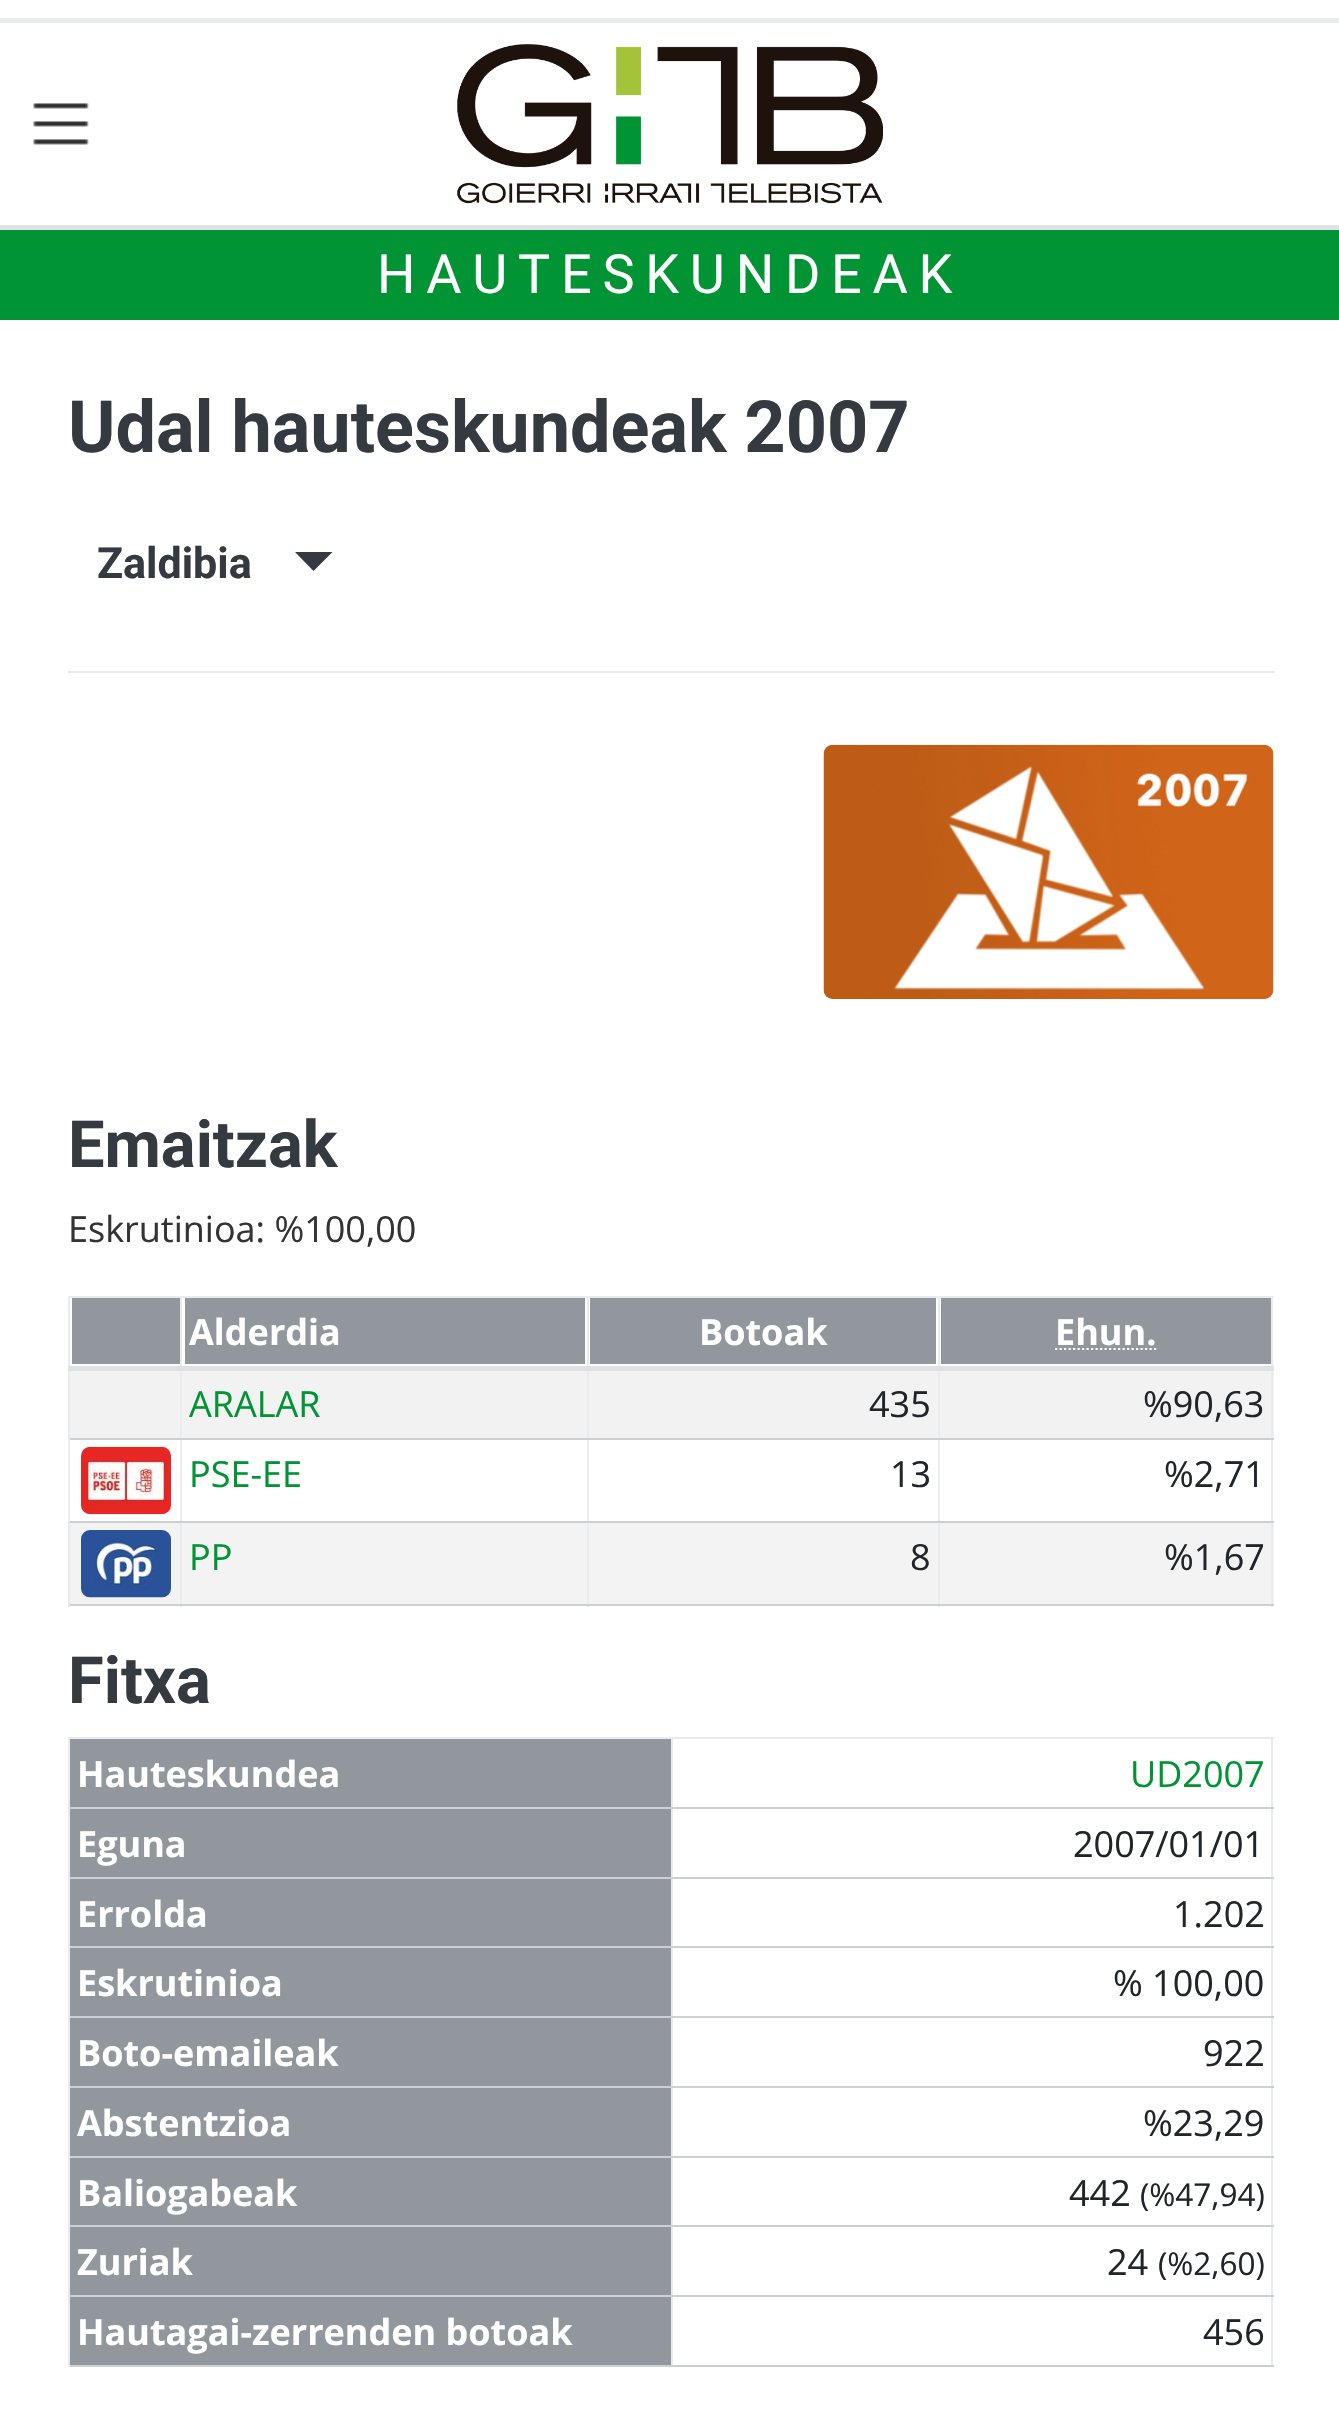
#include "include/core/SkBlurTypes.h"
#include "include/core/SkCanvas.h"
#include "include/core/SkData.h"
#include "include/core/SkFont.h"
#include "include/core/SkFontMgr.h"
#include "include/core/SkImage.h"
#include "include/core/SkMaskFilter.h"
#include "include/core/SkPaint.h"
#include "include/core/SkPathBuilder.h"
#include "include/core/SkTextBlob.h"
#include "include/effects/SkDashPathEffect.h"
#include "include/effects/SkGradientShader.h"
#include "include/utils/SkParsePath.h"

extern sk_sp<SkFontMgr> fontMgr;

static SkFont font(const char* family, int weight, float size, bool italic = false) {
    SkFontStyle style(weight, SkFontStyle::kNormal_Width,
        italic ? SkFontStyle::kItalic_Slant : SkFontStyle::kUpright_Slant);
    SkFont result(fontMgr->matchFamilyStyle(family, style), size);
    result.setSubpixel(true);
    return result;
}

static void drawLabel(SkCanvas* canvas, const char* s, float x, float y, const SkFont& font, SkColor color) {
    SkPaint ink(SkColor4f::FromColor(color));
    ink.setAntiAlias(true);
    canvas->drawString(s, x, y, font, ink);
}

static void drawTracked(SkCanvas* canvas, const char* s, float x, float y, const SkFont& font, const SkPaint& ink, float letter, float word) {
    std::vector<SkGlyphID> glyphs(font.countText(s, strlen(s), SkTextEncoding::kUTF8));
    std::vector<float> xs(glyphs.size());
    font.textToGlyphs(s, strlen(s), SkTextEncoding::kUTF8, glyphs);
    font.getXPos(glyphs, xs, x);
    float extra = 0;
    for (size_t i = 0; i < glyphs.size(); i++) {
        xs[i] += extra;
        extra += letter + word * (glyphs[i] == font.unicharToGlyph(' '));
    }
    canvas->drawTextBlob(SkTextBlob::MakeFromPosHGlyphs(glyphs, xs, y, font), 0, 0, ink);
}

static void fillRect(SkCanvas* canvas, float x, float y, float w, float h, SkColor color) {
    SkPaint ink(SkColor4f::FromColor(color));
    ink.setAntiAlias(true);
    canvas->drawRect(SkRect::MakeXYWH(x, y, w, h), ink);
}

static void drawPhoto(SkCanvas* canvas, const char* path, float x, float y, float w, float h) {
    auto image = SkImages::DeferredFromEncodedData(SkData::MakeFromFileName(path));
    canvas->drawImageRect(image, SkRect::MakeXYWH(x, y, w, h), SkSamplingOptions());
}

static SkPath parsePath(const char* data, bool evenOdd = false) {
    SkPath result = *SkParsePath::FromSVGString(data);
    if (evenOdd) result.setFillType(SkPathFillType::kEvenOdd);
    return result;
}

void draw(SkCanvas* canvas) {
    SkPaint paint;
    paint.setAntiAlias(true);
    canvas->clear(0xFFFFFFFF);
    fillRect(canvas, 0, 18, 1339, 5, 0xFFE9ECEF);
    drawPhoto(canvas, "assets/img1.png", 33, 103, 56, 42);
    drawPhoto(canvas, "assets/img2.png", 457, 44, 426, 160);
    fillRect(canvas, 0, 225, 1339, 5, 0xFFDEE2E6);
    fillRect(canvas, 0, 230, 1339, 90, 0xFF009434);
    SkFont font1 = font("Roboto", 400, 54);
    paint.setColor(0xFFFFFFFF);
    drawTracked(canvas, "HAUTESKUNDEAK", 377, 293, font1, paint, 10.75f, 0);
    SkFont font2 = font("Roboto", 700, 72);
    drawLabel(canvas, "Udal hauteskundeak 2007", 68, 452, font2, 0xFF343A40);
    SkFont font3 = font("Roboto", 700, 43);
    drawLabel(canvas, "Zaldibia", 97, 578, font3, 0xFF343A40);
    paint.setColor(0xFF343A40);
    canvas->drawPath(parsePath("M295 552H332.5L313.5 571Z"), paint);
    fillRect(canvas, 68, 671, 1206, 2, 0xFFE6E6E6);
    drawPhoto(canvas, "assets/img3.png", 823, 744, 451, 255);
    SkFont font4 = font("Roboto", 700, 65);
    drawLabel(canvas, "Emaitzak", 68, 1167, font4, 0xFF343A40);
    SkFont font5 = font("Open Sans", 400, 36);
    drawLabel(canvas, "Eskrutinioa: %100,00", 68, 1242, font5, 0xFF333333);
    fillRect(canvas, 68, 1296, 1206, 2, 0xFFE9ECEF);
    fillRect(canvas, 70, 1371, 1204, 67, 0xFFF2F2F2);
    fillRect(canvas, 70, 1523, 1204, 81, 0xFFF3F3F3);
    fillRect(canvas, 1271, 1296, 2, 311, 0xFFE9ECEF);
    fillRect(canvas, 68, 1296, 2, 70, 0xFFE9ECEF);
    fillRect(canvas, 72, 1298, 108, 66, 0xFF91979D);
    fillRect(canvas, 185, 1298, 400, 66, 0xFF91979D);
    SkFont font6 = font("Open Sans", 700, 36);
    drawLabel(canvas, "Alderdia", 189, 1345, font6, 0xFFFFFFFF);
    fillRect(canvas, 590, 1298, 346, 66, 0xFF91979D);
    drawLabel(canvas, "Botoak", 699, 1345, font6, 0xFFFFFFFF);
    fillRect(canvas, 941, 1298, 330, 66, 0xFF91979D);
    fillRect(canvas, 938, 1604, 336, 2, 0xFFCDD0D3);
    fillRect(canvas, 938, 1521, 2, 86, 0xFFE9ECEF);
    fillRect(canvas, 938, 1521, 336, 2, 0xFFCDD0D3);
    fillRect(canvas, 938, 1438, 2, 85, 0xFFE9ECEF);
    fillRect(canvas, 938, 1438, 336, 2, 0xFFCDD0D3);
    fillRect(canvas, 938, 1296, 2, 144, 0xFFE9ECEF);
    fillRect(canvas, 587, 1604, 354, 2, 0xFFCDD0D3);
    fillRect(canvas, 587, 1521, 2, 86, 0xFFE9ECEF);
    fillRect(canvas, 587, 1521, 354, 2, 0xFFCDD0D3);
    fillRect(canvas, 587, 1438, 2, 85, 0xFFE9ECEF);
    fillRect(canvas, 587, 1438, 354, 2, 0xFFCDD0D3);
    fillRect(canvas, 587, 1296, 2, 144, 0xFFE9ECEF);
    fillRect(canvas, 180, 1604, 410, 2, 0xFFCDD0D3);
    fillRect(canvas, 180, 1521, 2, 86, 0xFFE9ECEF);
    fillRect(canvas, 180, 1521, 410, 2, 0xFFCDD0D3);
    fillRect(canvas, 180, 1438, 2, 85, 0xFFE9ECEF);
    fillRect(canvas, 180, 1438, 410, 2, 0xFFCDD0D3);
    fillRect(canvas, 180, 1296, 2, 144, 0xFFE9ECEF);
    fillRect(canvas, 68, 1604, 114, 2, 0xFFCDD0D3);
    fillRect(canvas, 68, 1521, 2, 86, 0xFFE9ECEF);
    fillRect(canvas, 68, 1521, 114, 2, 0xFFCDD0D3);
    fillRect(canvas, 68, 1438, 2, 85, 0xFFE9ECEF);
    fillRect(canvas, 68, 1438, 114, 2, 0xFFCDD0D3);
    fillRect(canvas, 68, 1366, 2, 74, 0xFFE9ECEF);
    fillRect(canvas, 68, 1366, 1206, 5, 0xFFDEE2E6);
    drawLabel(canvas, "Ehun.", 1055, 1345, font6, 0xFFFFFFFF);
    paint.setStroke(true);
    paint.setStrokeWidth(2.2f);
    paint.setColor(0xFFFFFFFF);
    paint.setPathEffect(SkDashPathEffect::Make({{2.25f, 2.25f}}, 0));
    canvas->drawPath(parsePath("M1055 1349H1156.5"), paint);
    paint.setPathEffect(nullptr);
    drawLabel(canvas, "ARALAR", 189, 1417, font5, 0xFF009434);
    drawLabel(canvas, "435", 869, 1417, font5, 0xFF212529);
    drawLabel(canvas, "%90,63", 1143, 1417, font5, 0xFF212529);
    drawPhoto(canvas, "assets/img4.png", 81, 1446, 90, 69);
    drawLabel(canvas, "PSE-EE", 189, 1487, font5, 0xFF009434);
    drawLabel(canvas, "13", 890, 1487, font5, 0xFF212529);
    drawLabel(canvas, "%2,71", 1164, 1487, font5, 0xFF212529);
    drawPhoto(canvas, "assets/img5.png", 81, 1530, 90, 68);
    drawLabel(canvas, "PP", 189, 1570, font5, 0xFF009434);
    drawLabel(canvas, "8", 910, 1570, font5, 0xFF212529);
    drawLabel(canvas, "%1,67", 1164, 1570, font5, 0xFF212529);
    drawLabel(canvas, "Fitxa", 68, 1703, font4, 0xFF343A40);
    fillRect(canvas, 68, 1737, 1206, 2, 0xFFE9ECEF);
    fillRect(canvas, 1271, 1737, 2, 630, 0xFFE9ECEF);
    fillRect(canvas, 70, 1739, 601, 68, 0xFF91979D);
    fillRect(canvas, 671, 2365, 603, 2, 0xFFCDD0D3);
    fillRect(canvas, 671, 2295, 2, 72, 0xFFE9ECEF);
    fillRect(canvas, 671, 2295, 603, 2, 0xFFCDD0D3);
    fillRect(canvas, 671, 2225, 2, 72, 0xFFE9ECEF);
    fillRect(canvas, 671, 2225, 603, 2, 0xFFCDD0D3);
    fillRect(canvas, 671, 2156, 2, 72, 0xFFE9ECEF);
    fillRect(canvas, 671, 2156, 603, 2, 0xFFCDD0D3);
    fillRect(canvas, 671, 2086, 2, 72, 0xFFE9ECEF);
    fillRect(canvas, 671, 2086, 603, 2, 0xFFCDD0D3);
    fillRect(canvas, 671, 2016, 2, 72, 0xFFE9ECEF);
    fillRect(canvas, 671, 2016, 603, 2, 0xFFCDD0D3);
    fillRect(canvas, 671, 1946, 2, 72, 0xFFE9ECEF);
    fillRect(canvas, 671, 1946, 603, 2, 0xFFCDD0D3);
    fillRect(canvas, 671, 1877, 2, 72, 0xFFE9ECEF);
    fillRect(canvas, 671, 1877, 603, 2, 0xFFCDD0D3);
    fillRect(canvas, 671, 1807, 2, 72, 0xFFE9ECEF);
    fillRect(canvas, 671, 1807, 603, 2, 0xFFCDD0D3);
    fillRect(canvas, 671, 1737, 2, 72, 0xFFE9ECEF);
    fillRect(canvas, 70, 1879, 601, 137, 0xFF91979D);
    fillRect(canvas, 70, 2158, 601, 137, 0xFF91979D);
    fillRect(canvas, 68, 2365, 605, 2, 0xFFCDD0D3);
    fillRect(canvas, 68, 2295, 2, 72, 0xFFE9ECEF);
    fillRect(canvas, 68, 2295, 605, 2, 0xFFCDD0D3);
    fillRect(canvas, 68, 2225, 2, 72, 0xFFE9ECEF);
    fillRect(canvas, 68, 2225, 605, 2, 0xFFCDD0D3);
    fillRect(canvas, 68, 2156, 2, 72, 0xFFE9ECEF);
    fillRect(canvas, 68, 2156, 605, 2, 0xFFCDD0D3);
    fillRect(canvas, 68, 2086, 2, 72, 0xFFE9ECEF);
    fillRect(canvas, 68, 2086, 605, 2, 0xFFCDD0D3);
    fillRect(canvas, 68, 2016, 2, 72, 0xFFE9ECEF);
    fillRect(canvas, 68, 2016, 605, 2, 0xFFCDD0D3);
    fillRect(canvas, 68, 1946, 2, 72, 0xFFE9ECEF);
    fillRect(canvas, 68, 1946, 605, 2, 0xFFCDD0D3);
    fillRect(canvas, 68, 1877, 2, 72, 0xFFE9ECEF);
    fillRect(canvas, 68, 1877, 605, 2, 0xFFCDD0D3);
    fillRect(canvas, 68, 1807, 2, 72, 0xFFE9ECEF);
    fillRect(canvas, 68, 1807, 605, 2, 0xFFCDD0D3);
    fillRect(canvas, 68, 1737, 2, 72, 0xFFE9ECEF);
    drawLabel(canvas, "Hauteskundea", 77, 1787, font6, 0xFFFFFFFF);
    drawLabel(canvas, "UD2007", 1130, 1787, font5, 0xFF009434);
    fillRect(canvas, 70, 1809, 601, 68, 0xFF91979D);
    drawLabel(canvas, "Eguna", 77, 1857, font6, 0xFFFFFFFF);
    drawLabel(canvas, "2007/01/01", 1073, 1857, font5, 0xFF212529);
    drawLabel(canvas, "Errolda", 77, 1927, font6, 0xFFFFFFFF);
    drawLabel(canvas, "1.202", 1173, 1927, font5, 0xFF212529);
    drawLabel(canvas, "Eskrutinioa", 77, 1996, font6, 0xFFFFFFFF);
    drawLabel(canvas, "% 100,00", 1113, 1996, font5, 0xFF212529);
    fillRect(canvas, 70, 2018, 601, 68, 0xFF91979D);
    drawLabel(canvas, "Boto-emaileak", 77, 2066, font6, 0xFFFFFFFF);
    drawLabel(canvas, "922", 1203, 2066, font5, 0xFF212529);
    fillRect(canvas, 70, 2088, 601, 68, 0xFF91979D);
    drawLabel(canvas, "Abstentzioa", 77, 2136, font6, 0xFFFFFFFF);
    drawLabel(canvas, "%23,29", 1143, 2136, font5, 0xFF212529);
    drawLabel(canvas, "Baliogabeak", 77, 2206, font6, 0xFFFFFFFF);
    drawLabel(canvas, "442", 1069, 2206, font5, 0xFF212529);
    SkFont font7 = font("Open Sans", 400, 31.5f);
    drawLabel(canvas, "(%47,94)", 1140, 2206, font7, 0xFF212529);
    drawLabel(canvas, "Zuriak", 77, 2275, font6, 0xFFFFFFFF);
    drawLabel(canvas, "24", 1107, 2275, font5, 0xFF212529);
    drawLabel(canvas, "(%2,60)", 1158, 2275, font7, 0xFF212529);
    fillRect(canvas, 70, 2297, 601, 68, 0xFF91979D);
    drawLabel(canvas, "Hautagai-zerrenden botoak", 77, 2345, font6, 0xFFFFFFFF);
    drawLabel(canvas, "456", 1203, 2345, font5, 0xFF212529);
}
